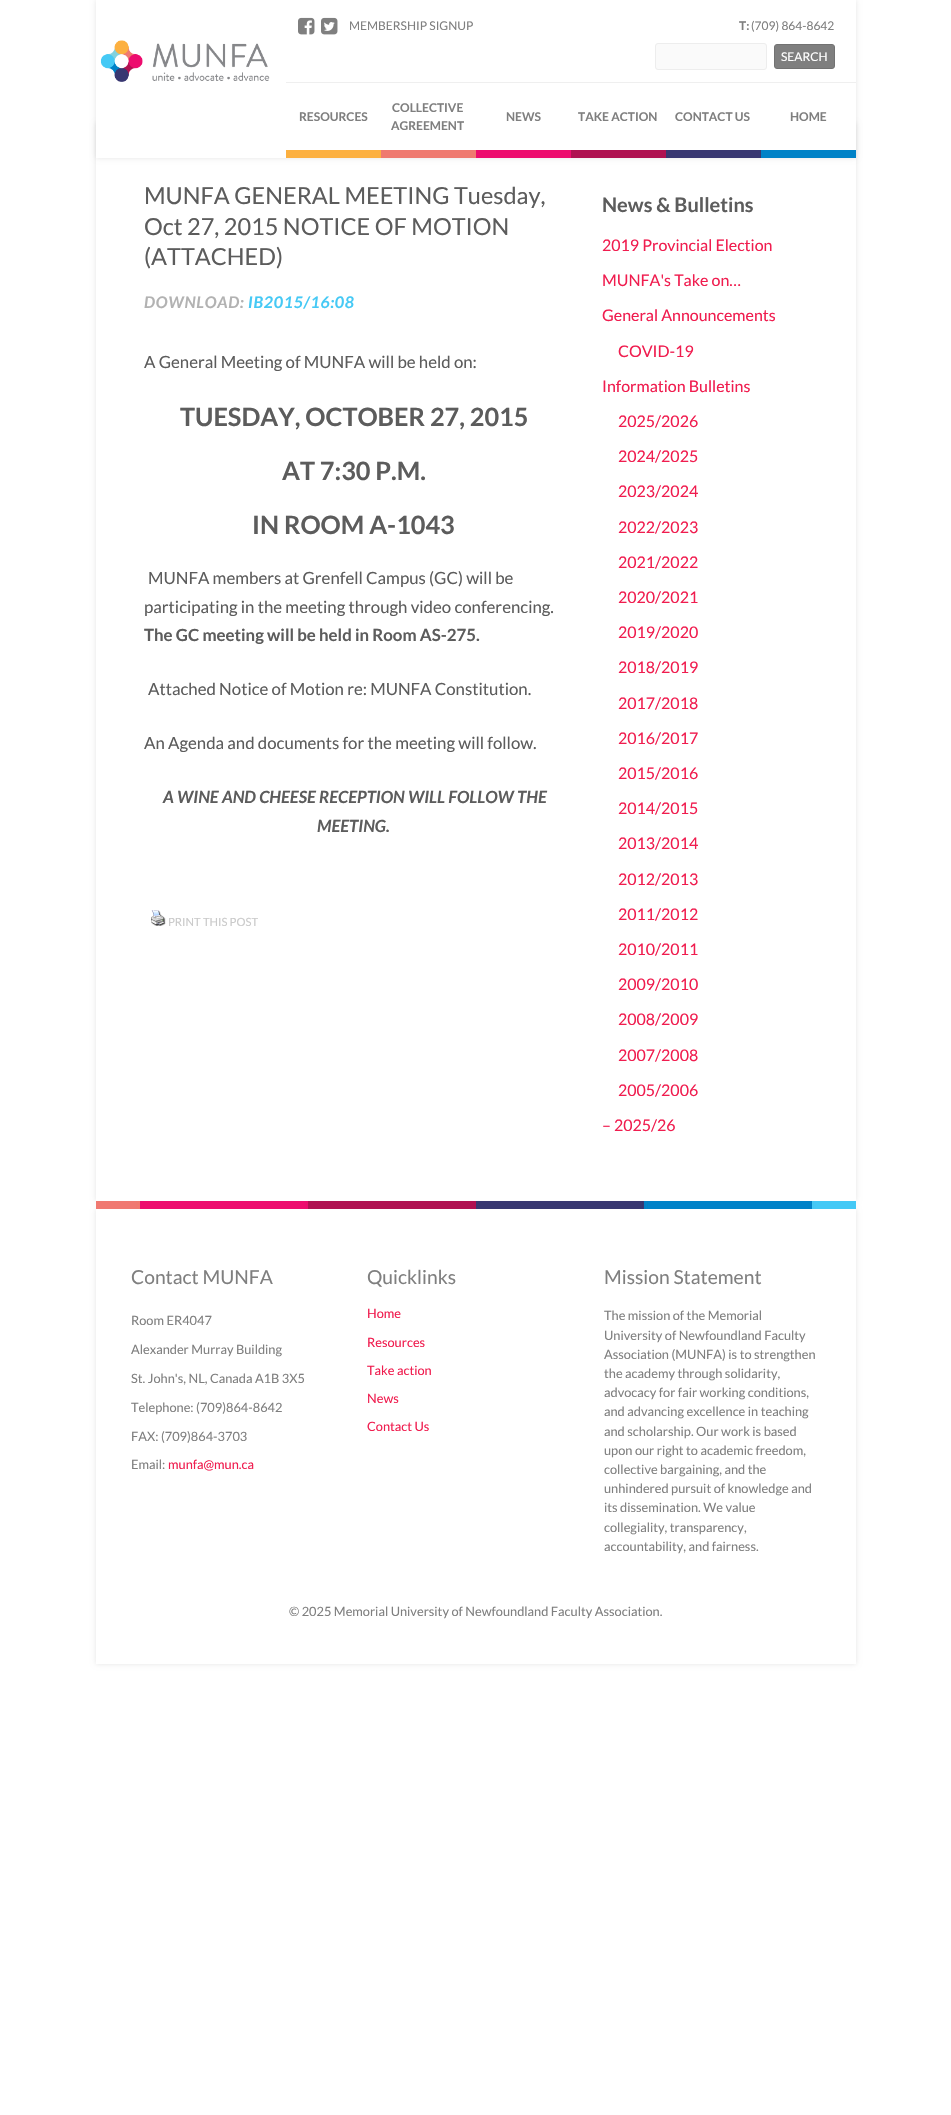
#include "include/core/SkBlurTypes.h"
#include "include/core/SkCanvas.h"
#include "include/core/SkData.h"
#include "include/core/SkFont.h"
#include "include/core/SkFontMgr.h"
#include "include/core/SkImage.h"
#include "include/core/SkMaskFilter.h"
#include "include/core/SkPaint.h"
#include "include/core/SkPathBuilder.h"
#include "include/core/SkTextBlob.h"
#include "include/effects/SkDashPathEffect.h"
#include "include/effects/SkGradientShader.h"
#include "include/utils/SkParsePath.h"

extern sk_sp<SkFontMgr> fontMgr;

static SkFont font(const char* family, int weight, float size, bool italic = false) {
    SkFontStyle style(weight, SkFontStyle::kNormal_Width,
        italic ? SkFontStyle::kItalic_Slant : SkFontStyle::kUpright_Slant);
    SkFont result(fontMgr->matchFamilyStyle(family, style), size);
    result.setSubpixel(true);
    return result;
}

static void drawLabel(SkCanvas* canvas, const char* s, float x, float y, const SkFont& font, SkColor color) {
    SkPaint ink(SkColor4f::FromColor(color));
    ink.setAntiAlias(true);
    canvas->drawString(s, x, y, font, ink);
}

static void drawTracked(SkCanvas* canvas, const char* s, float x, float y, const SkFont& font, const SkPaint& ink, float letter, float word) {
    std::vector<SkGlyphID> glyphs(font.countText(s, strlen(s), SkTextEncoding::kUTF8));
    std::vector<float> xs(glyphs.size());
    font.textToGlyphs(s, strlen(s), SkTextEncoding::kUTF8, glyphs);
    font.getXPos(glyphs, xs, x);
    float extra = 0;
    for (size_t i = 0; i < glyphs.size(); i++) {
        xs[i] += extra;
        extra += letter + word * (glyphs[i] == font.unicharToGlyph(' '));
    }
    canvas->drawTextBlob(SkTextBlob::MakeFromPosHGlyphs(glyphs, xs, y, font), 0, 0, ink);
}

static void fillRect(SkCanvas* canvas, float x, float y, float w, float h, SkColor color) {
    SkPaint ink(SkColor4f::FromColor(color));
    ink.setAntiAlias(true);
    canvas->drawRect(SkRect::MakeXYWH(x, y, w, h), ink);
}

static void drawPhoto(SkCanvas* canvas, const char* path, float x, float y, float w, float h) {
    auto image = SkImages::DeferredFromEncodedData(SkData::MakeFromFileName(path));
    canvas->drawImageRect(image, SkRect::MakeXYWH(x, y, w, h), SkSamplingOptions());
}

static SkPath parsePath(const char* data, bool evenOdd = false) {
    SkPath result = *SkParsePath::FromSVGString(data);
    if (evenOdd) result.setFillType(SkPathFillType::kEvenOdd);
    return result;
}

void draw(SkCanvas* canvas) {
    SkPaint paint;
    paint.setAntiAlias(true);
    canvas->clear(0xFFFFFFFF);
    paint.setColor(0x1A000000);
    paint.setMaskFilter(SkMaskFilter::MakeBlur(kNormal_SkBlurStyle, 2.5f));
    canvas->drawRect(SkRect::MakeXYWH(96, 0, 760, 158), paint);
    paint.setMaskFilter(nullptr);
    canvas->save();
    canvas->clipPath(parsePath("M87 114H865V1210H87ZM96 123H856V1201H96Z", true), true);
    paint.setMaskFilter(SkMaskFilter::MakeBlur(kNormal_SkBlurStyle, 2.5f));
    canvas->drawRect(SkRect::MakeXYWH(96, 123, 760, 1078), paint);
    paint.setMaskFilter(nullptr);
    canvas->restore();
    fillRect(canvas, 96, 0, 760, 158, 0xFFFFFFFF);
    drawPhoto(canvas, "assets/img1.png", 100, 40, 170, 42);
    fillRect(canvas, 286, 82, 570, 1, 0xFFEFEFEF);
    drawPhoto(canvas, "assets/img2.png", 298, 17, 17, 18);
    drawPhoto(canvas, "assets/img3.png", 321, 17, 17, 18);
    SkFont font1 = font("Lato", 400, 12);
    drawLabel(canvas, "MEMBERSHIP SIGNUP", 349, 30, font1, 0xFF7F7F7F);
    SkFont font2 = font("Lato", 700, 12);
    drawLabel(canvas, "T:", 739, 30, font2, 0xFF7F7F7F);
    drawLabel(canvas, "(709) 864-8642", 751, 30, font1, 0xFF7F7F7F);
    paint.setColor(0xFFFAFAFA);
    canvas->drawRoundRect(SkRect::MakeXYWH(655.5f, 43.5f, 111, 26), 2.5f, 2.5f, paint);
    paint.setStroke(true);
    paint.setStrokeWidth(1);
    paint.setColor(0xFFEDEDED);
    canvas->drawRoundRect(SkRect::MakeXYWH(655.5f, 43.5f, 111, 26), 2.5f, 2.5f, paint);
    paint.setStroke(false);
    paint.setColor(0xFF7F7F7F);
    canvas->drawRoundRect(SkRect::MakeXYWH(774.5f, 44.5f, 60, 24), 2.5f, 2.5f, paint);
    paint.setStroke(true);
    paint.setColor(0xFF727272);
    canvas->drawRoundRect(SkRect::MakeXYWH(774.5f, 44.5f, 60, 24), 2.5f, 2.5f, paint);
    drawLabel(canvas, "SEARCH", 781, 61, font1, 0xFFFFFFFF);
    fillRect(canvas, 286, 150, 95, 8, 0xFFFCB040);
    drawLabel(canvas, "RESOURCES", 299, 121, font2, 0xFF7F7F7F);
    fillRect(canvas, 381, 150, 95, 8, 0xFFEF7A70);
    drawLabel(canvas, "COLLECTIVE", 392, 112, font2, 0xFF7F7F7F);
    drawLabel(canvas, "AGREEMENT", 391, 130, font2, 0xFF7F7F7F);
    fillRect(canvas, 476, 150, 95, 8, 0xFFED0C6E);
    drawLabel(canvas, "NEWS", 506, 121, font2, 0xFF7F7F7F);
    fillRect(canvas, 571, 150, 95, 8, 0xFFAF1251);
    drawLabel(canvas, "TAKE ACTION", 578, 121, font2, 0xFF7F7F7F);
    fillRect(canvas, 666, 150, 95, 8, 0xFF383771);
    drawLabel(canvas, "CONTACT US", 675, 121, font2, 0xFF7F7F7F);
    fillRect(canvas, 761, 150, 95, 8, 0xFF0082C7);
    drawLabel(canvas, "HOME", 790, 121, font2, 0xFF7F7F7F);
    SkFont font3 = font("Lato", 400, 23.5f);
    drawLabel(canvas, "MUNFA GENERAL MEETING Tuesday,", 144, 204, font3, 0xFF5C5C5C);
    drawLabel(canvas, "Oct 27, 2015 NOTICE OF MOTION", 144, 235, font3, 0xFF5C5C5C);
    drawLabel(canvas, "(ATTACHED)", 144, 265, font3, 0xFF5C5C5C);
    SkFont font4 = font("Lato", 700, 16, true);
    paint.setStroke(false);
    paint.setColor(0xFFB2B2B2);
    drawTracked(canvas, "DOWNLOAD:", 144, 308, font4, paint, 0.75f, 0);
    paint.setColor(0xFF45C9F5);
    drawTracked(canvas, "IB2015/16:08", 248, 308, font4, paint, 0.75f, 0);
    SkFont font5 = font("Lato", 400, 16.8f);
    drawLabel(canvas, "A General Meeting of MUNFA will be held on:", 144, 368, font5, 0xFF5C5C5C);
    SkFont font6 = font("Lato", 700, 25.25f);
    drawLabel(canvas, "TUESDAY, OCTOBER 27, 2015", 180, 426, font6, 0xFF5C5C5C);
    drawLabel(canvas, "AT 7:30 P.M.", 282, 480, font6, 0xFF5C5C5C);
    drawLabel(canvas, "IN ROOM A-1043", 252, 534, font6, 0xFF5C5C5C);
    drawLabel(canvas, "MUNFA members at Grenfell Campus (GC) will be", 148, 584, font5, 0xFF5C5C5C);
    drawLabel(canvas, "participating in the meeting through video conferencing.", 144, 613, font5, 0xFF5C5C5C);
    SkFont font7 = font("Lato", 700, 16.8f);
    drawLabel(canvas, "The GC meeting will be held in Room AS-275.", 144, 641, font7, 0xFF5C5C5C);
    drawLabel(canvas, "Attached Notice of Motion re: MUNFA Constitution.", 148, 695, font5, 0xFF5C5C5C);
    drawLabel(canvas, "An Agenda and documents for the meeting will follow.", 144, 749, font5, 0xFF5C5C5C);
    SkFont font8 = font("Lato", 700, 16.8f, true);
    drawLabel(canvas, "A WINE AND CHEESE RECEPTION WILL FOLLOW THE", 163, 803, font8, 0xFF5C5C5C);
    drawLabel(canvas, "MEETING.", 317, 832, font8, 0xFF5C5C5C);
    drawPhoto(canvas, "assets/img4.png", 151, 910, 15, 16);
    SkFont font9 = font("Lato", 400, 11.25f);
    drawLabel(canvas, "PRINT THIS POST", 168, 926, font9, 0xFFCACACA);
    SkFont font10 = font("Lato", 700, 20);
    drawLabel(canvas, "News & Bulletins", 602, 212, font10, 0xFF5C5C5C);
    SkFont font11 = font("Lato", 400, 16);
    drawLabel(canvas, "2019 Provincial Election", 602, 251, font11, 0xFFF01D4F);
    drawLabel(canvas, "MUNFA's Take on…", 602, 286, font11, 0xFFF01D4F);
    drawLabel(canvas, "General Announcements", 602, 321, font11, 0xFFF01D4F);
    drawLabel(canvas, "COVID-19", 618, 357, font11, 0xFFF01D4F);
    drawLabel(canvas, "Information Bulletins", 602, 392, font11, 0xFFF01D4F);
    drawLabel(canvas, "2025/2026", 618, 427, font11, 0xFFF01D4F);
    drawLabel(canvas, "2024/2025", 618, 462, font11, 0xFFF01D4F);
    drawLabel(canvas, "2023/2024", 618, 497, font11, 0xFFF01D4F);
    drawLabel(canvas, "2022/2023", 618, 533, font11, 0xFFF01D4F);
    drawLabel(canvas, "2021/2022", 618, 568, font11, 0xFFF01D4F);
    drawLabel(canvas, "2020/2021", 618, 603, font11, 0xFFF01D4F);
    drawLabel(canvas, "2019/2020", 618, 638, font11, 0xFFF01D4F);
    drawLabel(canvas, "2018/2019", 618, 673, font11, 0xFFF01D4F);
    drawLabel(canvas, "2017/2018", 618, 709, font11, 0xFFF01D4F);
    drawLabel(canvas, "2016/2017", 618, 744, font11, 0xFFF01D4F);
    drawLabel(canvas, "2015/2016", 618, 779, font11, 0xFFF01D4F);
    drawLabel(canvas, "2014/2015", 618, 814, font11, 0xFFF01D4F);
    drawLabel(canvas, "2013/2014", 618, 849, font11, 0xFFF01D4F);
    drawLabel(canvas, "2012/2013", 618, 885, font11, 0xFFF01D4F);
    drawLabel(canvas, "2011/2012", 618, 920, font11, 0xFFF01D4F);
    drawLabel(canvas, "2010/2011", 618, 955, font11, 0xFFF01D4F);
    drawLabel(canvas, "2009/2010", 618, 990, font11, 0xFFF01D4F);
    drawLabel(canvas, "2008/2009", 618, 1025, font11, 0xFFF01D4F);
    drawLabel(canvas, "2007/2008", 618, 1061, font11, 0xFFF01D4F);
    drawLabel(canvas, "2005/2006", 618, 1096, font11, 0xFFF01D4F);
    drawLabel(canvas, "– 2025/26", 602, 1131, font11, 0xFFF01D4F);
    canvas->save();
    canvas->clipPath(parsePath("M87 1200H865V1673H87ZM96 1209H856V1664H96Z", true), true);
    paint.setColor(0x1A000000);
    paint.setMaskFilter(SkMaskFilter::MakeBlur(kNormal_SkBlurStyle, 2.5f));
    canvas->drawRect(SkRect::MakeXYWH(96, 1209, 760, 455), paint);
    paint.setMaskFilter(nullptr);
    canvas->restore();
    drawPhoto(canvas, "assets/img5.png", 96, 1201, 760, 8);
    SkFont font12 = font("Lato", 400, 19.25f);
    drawLabel(canvas, "Contact MUNFA", 131, 1284, font12, 0xFF7F7F7F);
    SkFont font13 = font("Lato", 400, 12.8f);
    drawLabel(canvas, "Room ER4047", 131, 1325, font13, 0xFF7F7F7F);
    drawLabel(canvas, "Alexander Murray Building", 131, 1354, font13, 0xFF7F7F7F);
    drawLabel(canvas, "St. John's, NL, Canada A1B 3X5", 131, 1383, font13, 0xFF7F7F7F);
    drawLabel(canvas, "Telephone: (709)864-8642", 131, 1412, font13, 0xFF7F7F7F);
    drawLabel(canvas, "FAX: (709)864-3703", 131, 1441, font13, 0xFF7F7F7F);
    drawLabel(canvas, "Email:", 131, 1469, font13, 0xFF7F7F7F);
    drawLabel(canvas, "munfa@mun.ca", 168, 1469, font13, 0xFFF01D4F);
    drawLabel(canvas, "Quicklinks", 367, 1284, font12, 0xFF7F7F7F);
    drawLabel(canvas, "Home", 367, 1318, font13, 0xFFF01D4F);
    drawLabel(canvas, "Resources", 367, 1347, font13, 0xFFF01D4F);
    drawLabel(canvas, "Take action", 367, 1375, font13, 0xFFF01D4F);
    drawLabel(canvas, "News", 367, 1403, font13, 0xFFF01D4F);
    drawLabel(canvas, "Contact Us", 367, 1431, font13, 0xFFF01D4F);
    drawLabel(canvas, "Mission Statement", 604, 1284, font12, 0xFF7F7F7F);
    drawLabel(canvas, "The mission of the Memorial", 604, 1320, font13, 0xFF7F7F7F);
    drawLabel(canvas, "University of Newfoundland Faculty", 604, 1340, font13, 0xFF7F7F7F);
    drawLabel(canvas, "Association (MUNFA) is to strengthen", 604, 1359, font13, 0xFF7F7F7F);
    drawLabel(canvas, "the academy through solidarity,", 604, 1378, font13, 0xFF7F7F7F);
    drawLabel(canvas, "advocacy for fair working conditions,", 604, 1397, font13, 0xFF7F7F7F);
    drawLabel(canvas, "and advancing excellence in teaching", 604, 1416, font13, 0xFF7F7F7F);
    drawLabel(canvas, "and scholarship. Our work is based", 604, 1436, font13, 0xFF7F7F7F);
    drawLabel(canvas, "upon our right to academic freedom,", 604, 1455, font13, 0xFF7F7F7F);
    drawLabel(canvas, "collective bargaining, and the", 604, 1474, font13, 0xFF7F7F7F);
    drawLabel(canvas, "unhindered pursuit of knowledge and", 604, 1493, font13, 0xFF7F7F7F);
    drawLabel(canvas, "its dissemination. We value", 604, 1512, font13, 0xFF7F7F7F);
    drawLabel(canvas, "collegiality, transparency,", 604, 1532, font13, 0xFF7F7F7F);
    drawLabel(canvas, "accountability, and fairness.", 604, 1551, font13, 0xFF7F7F7F);
    drawLabel(canvas, "© 2025 Memorial University of Newfoundland Faculty Association.", 289, 1616, font13, 0xFF7F7F7F);
}
